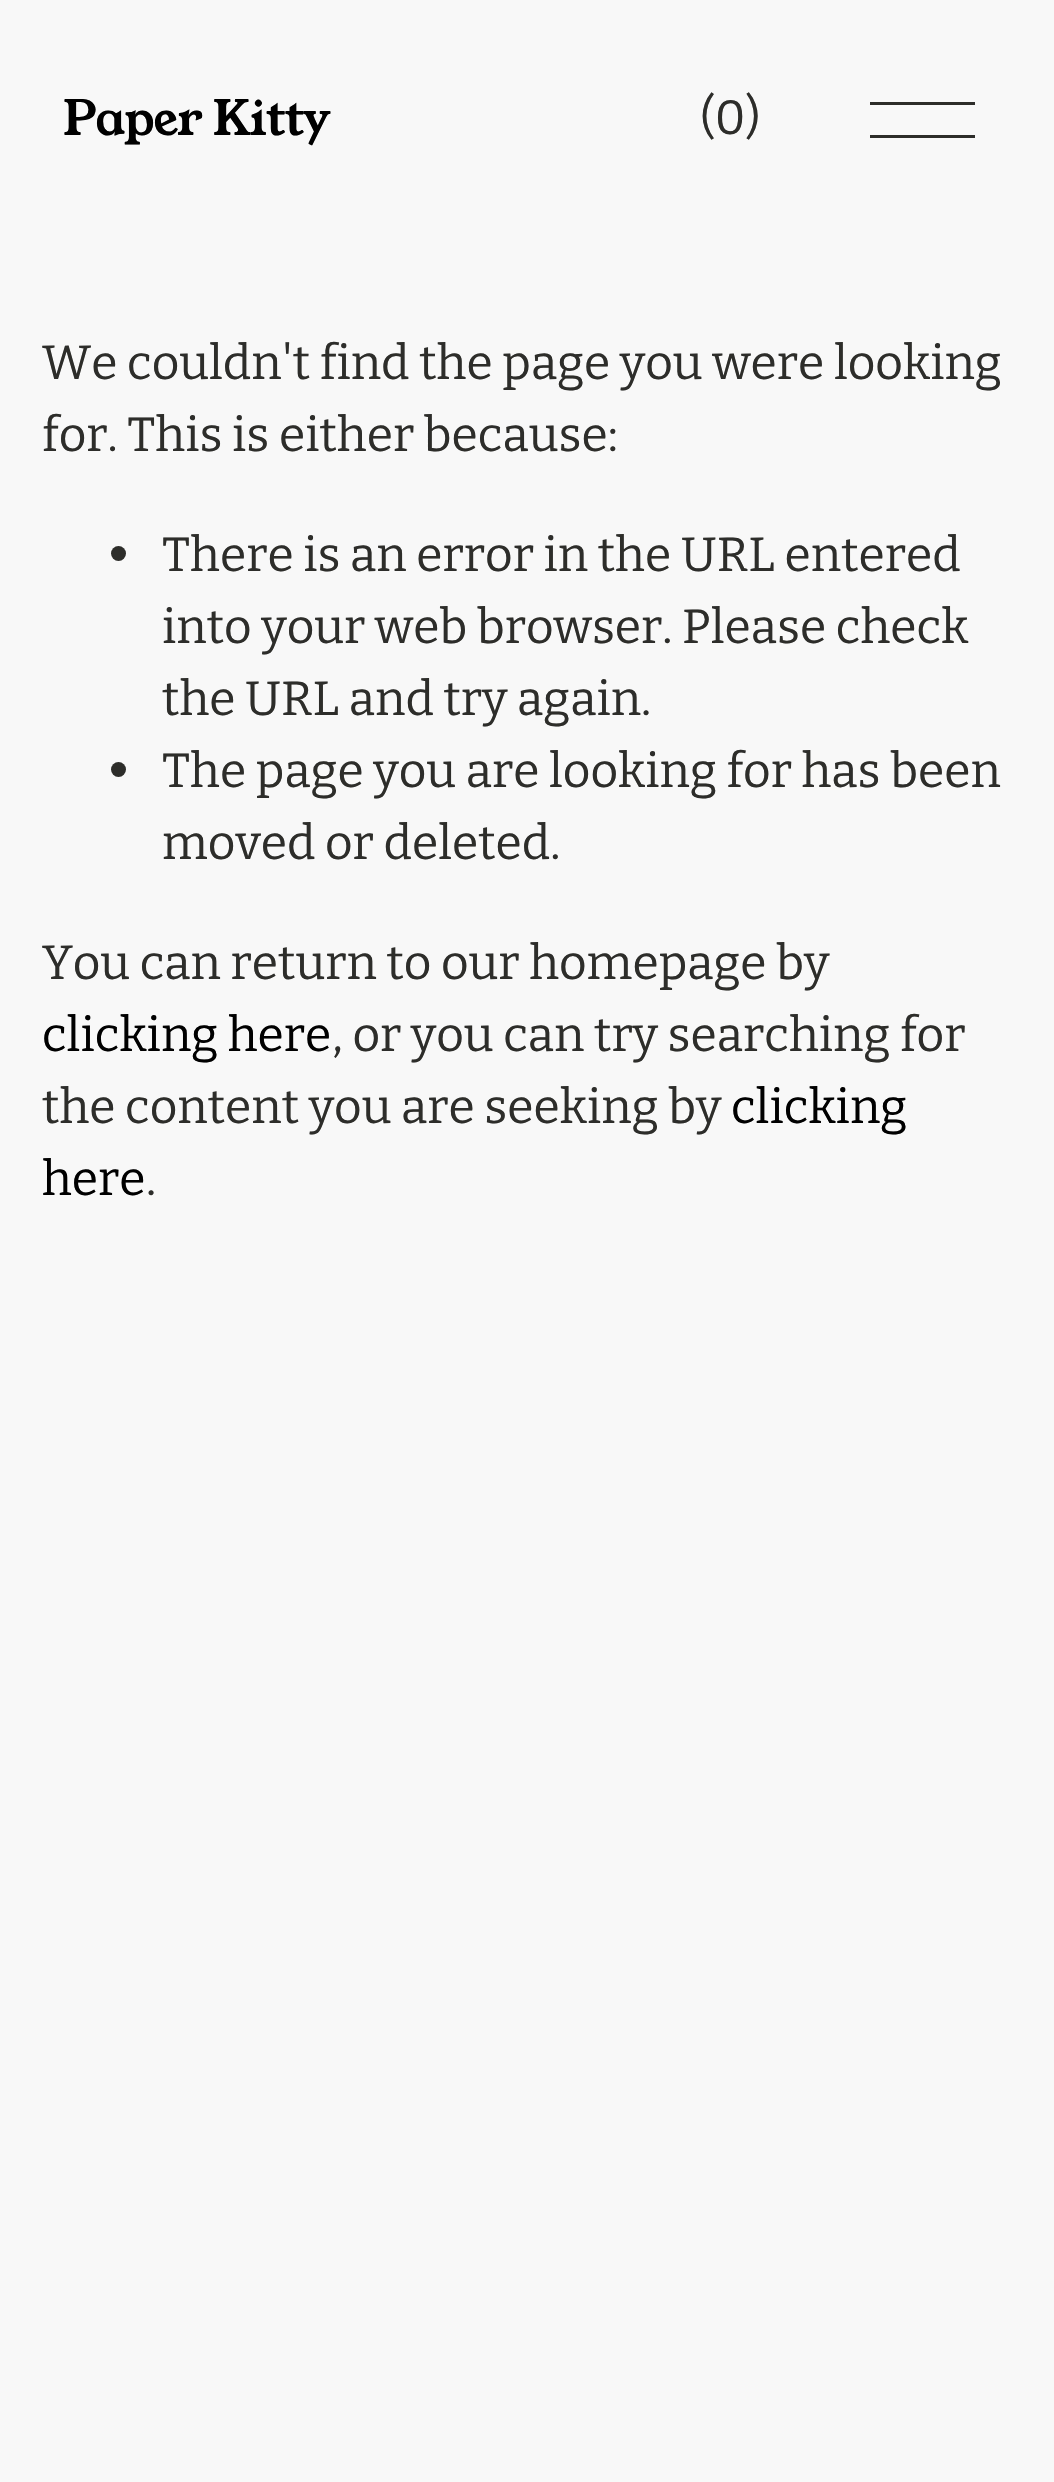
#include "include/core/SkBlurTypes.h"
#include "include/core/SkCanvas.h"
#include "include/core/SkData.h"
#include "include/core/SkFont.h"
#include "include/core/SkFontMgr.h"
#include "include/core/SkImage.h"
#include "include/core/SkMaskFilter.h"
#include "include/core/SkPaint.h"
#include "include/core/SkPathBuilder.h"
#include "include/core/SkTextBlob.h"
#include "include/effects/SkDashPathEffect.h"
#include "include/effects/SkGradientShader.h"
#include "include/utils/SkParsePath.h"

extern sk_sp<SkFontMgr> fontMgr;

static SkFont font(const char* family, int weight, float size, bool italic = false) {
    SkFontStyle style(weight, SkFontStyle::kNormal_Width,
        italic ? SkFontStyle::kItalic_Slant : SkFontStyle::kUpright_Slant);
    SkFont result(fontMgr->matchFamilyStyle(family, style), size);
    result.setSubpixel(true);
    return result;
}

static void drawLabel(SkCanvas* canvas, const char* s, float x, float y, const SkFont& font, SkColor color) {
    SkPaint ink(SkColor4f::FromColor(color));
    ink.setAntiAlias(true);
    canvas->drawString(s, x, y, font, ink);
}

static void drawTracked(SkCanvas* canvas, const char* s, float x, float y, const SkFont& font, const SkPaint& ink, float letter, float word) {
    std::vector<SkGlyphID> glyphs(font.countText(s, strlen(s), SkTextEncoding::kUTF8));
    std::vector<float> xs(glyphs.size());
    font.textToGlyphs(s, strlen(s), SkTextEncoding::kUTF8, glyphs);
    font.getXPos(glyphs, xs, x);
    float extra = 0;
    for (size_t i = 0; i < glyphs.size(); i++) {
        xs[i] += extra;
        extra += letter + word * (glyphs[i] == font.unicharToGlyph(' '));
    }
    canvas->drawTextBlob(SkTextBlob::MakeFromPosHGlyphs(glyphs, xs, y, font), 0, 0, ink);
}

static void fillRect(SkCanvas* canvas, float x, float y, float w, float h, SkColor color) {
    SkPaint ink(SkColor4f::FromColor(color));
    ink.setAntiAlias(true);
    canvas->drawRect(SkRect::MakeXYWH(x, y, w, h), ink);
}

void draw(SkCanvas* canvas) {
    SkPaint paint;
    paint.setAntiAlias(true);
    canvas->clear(0xFFF8F8F8);
    SkFont font1 = font("Young Serif", 400, 48);
    paint.setColor(0xFF000000);
    drawTracked(canvas, "Paper Kitty", 63, 135, font1, paint, -1, 0);
    SkFont font2 = font("Bitter", 400, 48);
    drawLabel(canvas, "(0)", 700, 134, font2, 0xFF2D2D2A);
    fillRect(canvas, 870, 102, 105, 3, 0xFF2D2D2A);
    fillRect(canvas, 870, 135, 105, 3, 0xFF2D2D2A);
    drawLabel(canvas, "We couldn't find the page you were looking", 42, 379, font2, 0xFF2D2D2A);
    drawLabel(canvas, "for. This is either because:", 42, 451, font2, 0xFF2D2D2A);
    paint.setColor(0xFF2D2D2A);
    canvas->drawCircle(118.5f, 553.5f, 7.5f, paint);
    drawLabel(canvas, "There is an error in the URL entered", 162, 571, font2, 0xFF2D2D2A);
    drawLabel(canvas, "into your web browser. Please check", 162, 643, font2, 0xFF2D2D2A);
    drawLabel(canvas, "the URL and try again.", 162, 715, font2, 0xFF2D2D2A);
    canvas->drawCircle(118.5f, 769.5f, 7.5f, paint);
    drawLabel(canvas, "The page you are looking for has been", 162, 787, font2, 0xFF2D2D2A);
    drawLabel(canvas, "moved or deleted.", 162, 859, font2, 0xFF2D2D2A);
    drawLabel(canvas, "You can return to our homepage by", 42, 979, font2, 0xFF2D2D2A);
    drawLabel(canvas, "clicking here", 42, 1051, font2, 0xFF000000);
    drawLabel(canvas, ", or you can try searching for", 332, 1051, font2, 0xFF2D2D2A);
    drawLabel(canvas, "the content you are seeking by", 42, 1123, font2, 0xFF2D2D2A);
    drawLabel(canvas, "clicking", 731, 1123, font2, 0xFF000000);
    drawLabel(canvas, "here", 42, 1195, font2, 0xFF000000);
    drawLabel(canvas, ".", 146, 1195, font2, 0xFF2D2D2A);
}
